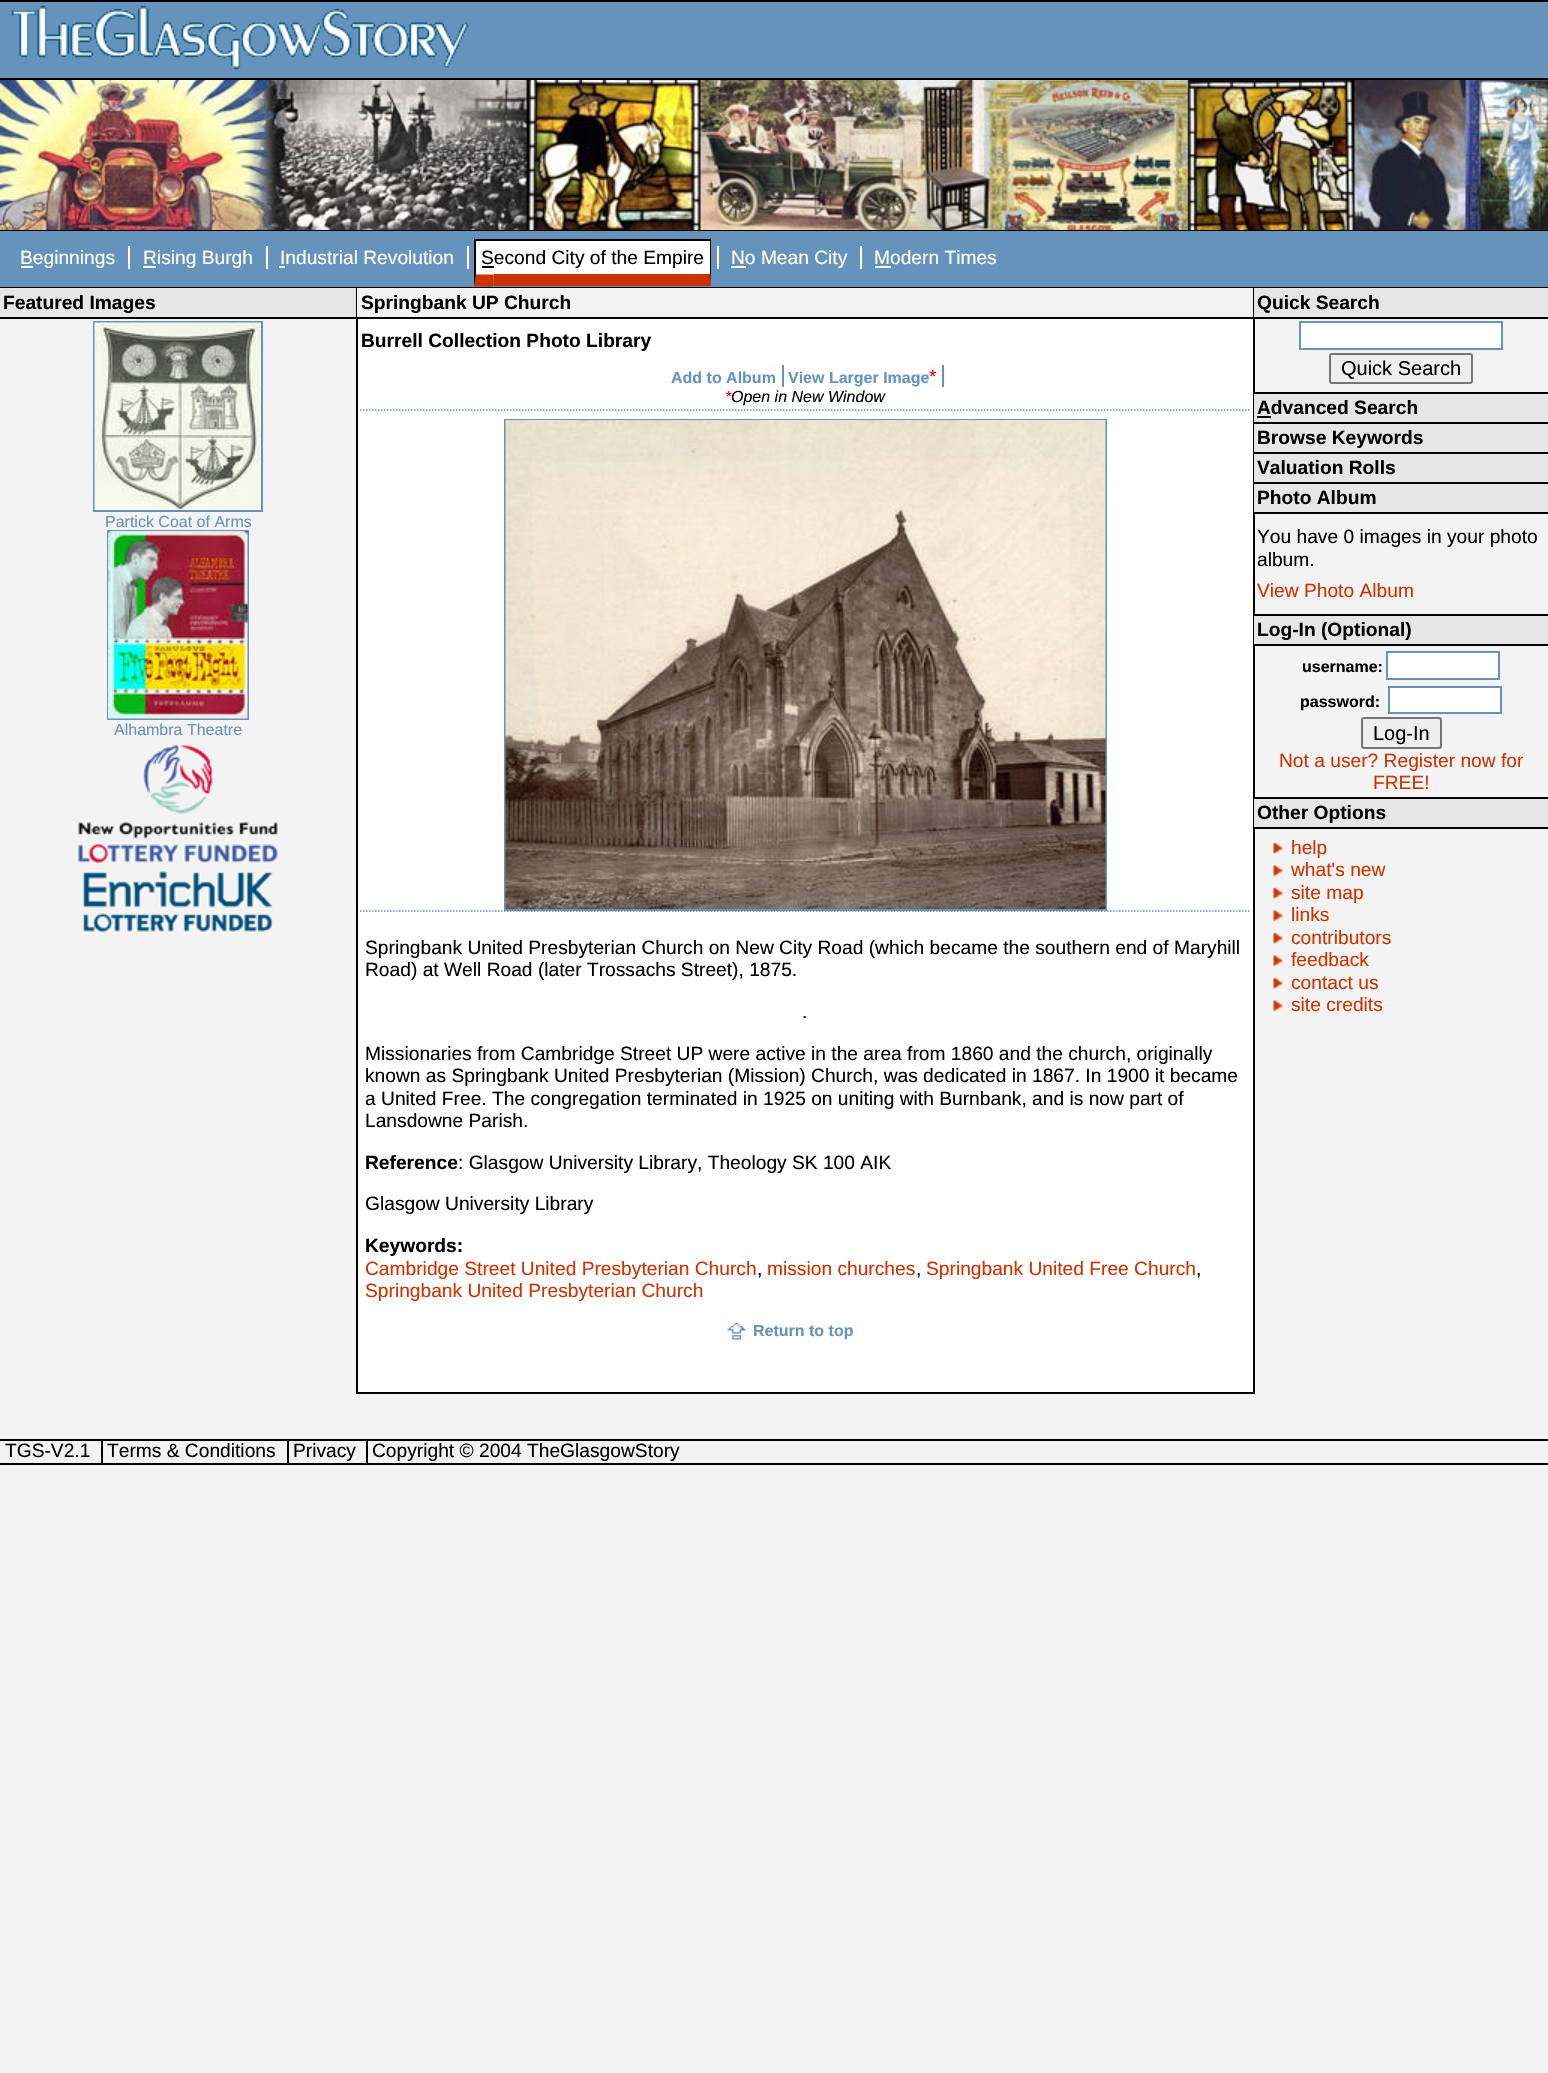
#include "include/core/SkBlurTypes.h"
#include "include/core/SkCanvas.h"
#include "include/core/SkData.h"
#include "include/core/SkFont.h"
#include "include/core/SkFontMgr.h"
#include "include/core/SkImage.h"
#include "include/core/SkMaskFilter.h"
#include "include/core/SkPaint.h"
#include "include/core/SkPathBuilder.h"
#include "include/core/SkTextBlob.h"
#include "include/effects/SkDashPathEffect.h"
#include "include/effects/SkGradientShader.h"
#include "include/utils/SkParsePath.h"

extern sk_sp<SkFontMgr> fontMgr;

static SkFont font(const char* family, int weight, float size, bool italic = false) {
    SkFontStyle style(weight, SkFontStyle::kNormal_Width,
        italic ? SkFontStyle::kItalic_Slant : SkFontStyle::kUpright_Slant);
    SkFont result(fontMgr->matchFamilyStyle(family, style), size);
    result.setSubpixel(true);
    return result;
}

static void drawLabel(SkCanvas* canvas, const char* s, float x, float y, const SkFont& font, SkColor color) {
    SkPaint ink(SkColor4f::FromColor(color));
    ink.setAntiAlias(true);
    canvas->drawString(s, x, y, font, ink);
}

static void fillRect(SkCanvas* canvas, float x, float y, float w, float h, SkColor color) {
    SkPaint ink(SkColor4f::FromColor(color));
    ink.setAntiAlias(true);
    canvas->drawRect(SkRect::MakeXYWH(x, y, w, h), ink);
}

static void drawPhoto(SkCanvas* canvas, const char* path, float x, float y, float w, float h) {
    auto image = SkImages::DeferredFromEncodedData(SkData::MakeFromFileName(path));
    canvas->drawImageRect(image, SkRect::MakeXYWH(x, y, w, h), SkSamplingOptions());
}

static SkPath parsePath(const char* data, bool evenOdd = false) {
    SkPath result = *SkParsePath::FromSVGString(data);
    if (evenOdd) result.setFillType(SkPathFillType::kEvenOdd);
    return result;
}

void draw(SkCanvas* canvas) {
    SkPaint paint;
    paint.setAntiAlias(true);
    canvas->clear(0xFFF3F3F3);
    fillRect(canvas, 0, 2, 1548, 76, 0xFF6693BC);
    fillRect(canvas, 0, 0, 1548, 2, 0xFF000000);
    drawPhoto(canvas, "assets/img1.png", 11, 6, 458, 64);
    drawPhoto(canvas, "assets/img2.png", 0, 80, 1548, 150);
    fillRect(canvas, 0, 78, 1548, 2, 0xFF000000);
    fillRect(canvas, 0, 230, 1548, 1, 0xFF000000);
    fillRect(canvas, 0, 231, 1548, 56, 0xFF6693BC);
    fillRect(canvas, 0, 287, 1548, 1, 0xFF000000);
    fillRect(canvas, 21, 266, 12, 2, 0xFFFFFFFF);
    SkFont font1 = font("Liberation Sans", 400, 19.2f);
    drawLabel(canvas, "Beginnings", 20, 264, font1, 0xFFFFFFFF);
    fillRect(canvas, 143, 266, 13, 2, 0xFFFFFFFF);
    drawLabel(canvas, "Rising Burgh", 143, 264, font1, 0xFFFFFFFF);
    fillRect(canvas, 128, 246, 2, 23, 0xFFFFFFFF);
    drawLabel(canvas, "Industrial Revolution", 280, 264, font1, 0xFFFFFFFF);
    fillRect(canvas, 266, 246, 2, 23, 0xFFFFFFFF);
    fillRect(canvas, 279, 266, 6, 2, 0xFFFFFFFF);
    fillRect(canvas, 476, 241, 18, 34, 0xFFFFFFFF);
    fillRect(canvas, 494, 241, 216, 33, 0xFFFFFFFF);
    fillRect(canvas, 482, 266, 12, 2, 0xFF000000);
    drawLabel(canvas, "Second City of the Empire", 481, 264, font1, 0xFF000000);
    fillRect(canvas, 467, 246, 2, 23, 0xFFFFFFFF);
    fillRect(canvas, 474, 239, 237, 2, 0xFF000000);
    paint.setColor(0xFFCC3300);
    canvas->drawPath(parsePath("M493.5 286.5H474L475.5 274.5H493.5Z"), paint);
    paint.setColor(0xFF000000);
    canvas->drawPath(parsePath("M474 286V238L476 240V274Z"), paint);
    canvas->drawPath(parsePath("M711 238V286L710 274V240Z"), paint);
    paint.setColor(0xFFCC3300);
    canvas->drawPath(parsePath("M711 286H494V274H710Z"), paint);
    fillRect(canvas, 731, 266, 15, 2, 0xFFFFFFFF);
    drawLabel(canvas, "No Mean City", 731, 264, font1, 0xFFFFFFFF);
    fillRect(canvas, 717, 246, 2, 23, 0xFFFFFFFF);
    drawLabel(canvas, "Modern Times", 874, 264, font1, 0xFFFFFFFF);
    fillRect(canvas, 860, 246, 2, 23, 0xFFFFFFFF);
    fillRect(canvas, 875, 266, 16, 2, 0xFFFFFFFF);
    fillRect(canvas, 0, 288, 356, 29, 0xFFE6E6E6);
    fillRect(canvas, 0, 317, 356, 2, 0xFF000000);
    SkFont font2 = font("Liberation Sans", 700, 19.2f);
    drawLabel(canvas, "Featured Images", 3, 309, font2, 0xFF000000);
    paint.setStroke(true);
    paint.setStrokeWidth(2);
    paint.setColor(0xFF6693BC);
    canvas->drawRect(SkRect::MakeXYWH(94, 322, 168, 189), paint);
    drawPhoto(canvas, "assets/img3.png", 94, 322, 167, 188);
    SkFont font3 = font("Liberation Sans", 400, 16);
    drawLabel(canvas, "Partick Coat of Arms", 105, 527, font3, 0xFF6693BC);
    canvas->drawRect(SkRect::MakeXYWH(108, 531, 140, 188), paint);
    drawPhoto(canvas, "assets/img4.png", 108, 531, 140, 188);
    drawLabel(canvas, "Alhambra Theatre", 114, 735, font3, 0xFF6693BC);
    drawPhoto(canvas, "assets/img5.png", 76, 744, 203, 120);
    drawPhoto(canvas, "assets/img6.png", 82, 870, 191, 63);
    fillRect(canvas, 358, 319, 895, 1073, 0xFFFFFFFF);
    fillRect(canvas, 1253, 288, 2, 1106, 0xFF000000);
    fillRect(canvas, 356, 1392, 898, 2, 0xFF000000);
    fillRect(canvas, 356, 288, 2, 1106, 0xFF000000);
    fillRect(canvas, 357, 288, 1, 29, 0xFFF3F3F3);
    fillRect(canvas, 357, 317, 896, 2, 0xFF000000);
    drawLabel(canvas, "Springbank UP Church", 361, 309, font2, 0xFF000000);
    drawLabel(canvas, "Burrell Collection Photo Library", 361, 347, font2, 0xFF000000);
    paint.setStrokeWidth(1.5f);
    paint.setPathEffect(SkDashPathEffect::Make({{1.5f, 1.5f}}, 0));
    canvas->drawPath(parsePath("M360 410H1249.5"), paint);
    paint.setPathEffect(nullptr);
    SkFont font4 = font("Liberation Sans", 700, 16);
    drawLabel(canvas, "Add to Album", 671, 383, font4, 0xFF6693BC);
    drawLabel(canvas, "View Larger Image", 788, 383, font4, 0xFF6693BC);
    fillRect(canvas, 782, 365, 2, 22, 0xFF6693BC);
    drawLabel(canvas, "*", 929, 383, font1, 0xFFFF0000);
    fillRect(canvas, 942, 365, 2, 22, 0xFF6693BC);
    SkFont font5 = font("Liberation Sans", 400, 16, true);
    drawLabel(canvas, "*", 725, 402, font5, 0xFFFF0000);
    drawLabel(canvas, "Open in New Window", 731, 402, font5, 0xFF000000);
    paint.setPathEffect(SkDashPathEffect::Make({{1.5f, 1.5f}}, 0));
    canvas->drawPath(parsePath("M360 911H1249.5"), paint);
    paint.setPathEffect(nullptr);
    paint.setStrokeWidth(2);
    canvas->drawRect(SkRect::MakeXYWH(505, 420, 601, 490), paint);
    drawPhoto(canvas, "assets/img7.png", 505, 420, 601, 489);
    drawLabel(canvas, "Springbank United Presbyterian Church on New City Road (which became the southern end of Maryhill", 365, 954, font1, 0xFF000000);
    drawLabel(canvas, "Road) at Well Road (later Trossachs Street), 1875.", 365, 976, font1, 0xFF000000);
    drawLabel(canvas, ".", 802, 1018, font1, 0xFF000000);
    drawLabel(canvas, "Missionaries from Cambridge Street UP were active in the area from 1860 and the church, originally", 365, 1060, font1, 0xFF000000);
    drawLabel(canvas, "known as Springbank United Presbyterian (Mission) Church, was dedicated in 1867. In 1900 it became", 365, 1082, font1, 0xFF000000);
    drawLabel(canvas, "a United Free. The congregation terminated in 1925 on uniting with Burnbank, and is now part of", 365, 1105, font1, 0xFF000000);
    drawLabel(canvas, "Lansdowne Parish.", 365, 1127, font1, 0xFF000000);
    drawLabel(canvas, "Reference", 365, 1169, font2, 0xFF000000);
    drawLabel(canvas, ": Glasgow University Library, Theology SK 100 AIK", 458, 1169, font1, 0xFF000000);
    drawLabel(canvas, "Glasgow University Library", 365, 1210, font1, 0xFF000000);
    drawLabel(canvas, "Keywords:", 365, 1252, font2, 0xFF000000);
    drawLabel(canvas, "Cambridge Street United Presbyterian Church", 365, 1275, font1, 0xFFCC3300);
    drawLabel(canvas, ",", 757, 1275, font1, 0xFF000000);
    drawLabel(canvas, "mission churches", 767, 1275, font1, 0xFFCC3300);
    drawLabel(canvas, ",", 916, 1275, font1, 0xFF000000);
    drawLabel(canvas, "Springbank United Free Church", 926, 1275, font1, 0xFFCC3300);
    drawLabel(canvas, ",", 1196, 1275, font1, 0xFF000000);
    drawLabel(canvas, "Springbank United Presbyterian Church", 365, 1297, font1, 0xFFCC3300);
    drawPhoto(canvas, "assets/img8.png", 727, 1323, 19, 17);
    drawLabel(canvas, "Return to top", 753, 1336, font4, 0xFF6693BC);
    fillRect(canvas, 1254, 288, 294, 29, 0xFFE6E6E6);
    fillRect(canvas, 1254, 317, 294, 2, 0xFF000000);
    drawLabel(canvas, "Quick Search", 1257, 309, font2, 0xFF000000);
    paint.setStroke(false);
    paint.setColor(0xFFFFFFFF);
    canvas->drawRect(SkRect::MakeXYWH(1300, 322, 202, 27), paint);
    paint.setStroke(true);
    paint.setColor(0xFF6693BC);
    canvas->drawRect(SkRect::MakeXYWH(1300, 322, 202, 27), paint);
    paint.setStroke(false);
    paint.setColor(0xFFEFEFEF);
    canvas->drawRoundRect(SkRect::MakeXYWH(1330, 354, 142, 29), 2, 2, paint);
    paint.setStroke(true);
    paint.setColor(0xFF767676);
    canvas->drawRoundRect(SkRect::MakeXYWH(1330, 354, 142, 29), 2, 2, paint);
    SkFont font6 = font("Liberation Sans", 400, 20);
    drawLabel(canvas, "Quick Search", 1341, 375, font6, 0xFF000000);
    fillRect(canvas, 1254, 394, 294, 28, 0xFFE6E6E6);
    fillRect(canvas, 1254, 392, 294, 2, 0xFF000000);
    drawLabel(canvas, "Advanced Search", 1257, 414, font2, 0xFF000000);
    fillRect(canvas, 1257, 416, 14, 2, 0xFF000000);
    fillRect(canvas, 1254, 424, 294, 28, 0xFFE6E6E6);
    fillRect(canvas, 1254, 422, 294, 2, 0xFF000000);
    drawLabel(canvas, "Browse Keywords", 1257, 444, font2, 0xFF000000);
    fillRect(canvas, 1254, 454, 294, 28, 0xFFE6E6E6);
    fillRect(canvas, 1254, 452, 294, 2, 0xFF000000);
    drawLabel(canvas, "Valuation Rolls", 1257, 474, font2, 0xFF000000);
    fillRect(canvas, 1254, 484, 294, 28, 0xFFE6E6E6);
    fillRect(canvas, 1254, 482, 294, 2, 0xFF000000);
    fillRect(canvas, 1254, 512, 294, 2, 0xFF000000);
    drawLabel(canvas, "Photo Album", 1257, 504, font2, 0xFF000000);
    drawLabel(canvas, "You have 0 images in your photo", 1257, 543, font1, 0xFF000000);
    drawLabel(canvas, "album.", 1257, 566, font1, 0xFF000000);
    drawLabel(canvas, "View Photo Album", 1257, 597, font1, 0xFFCC3300);
    fillRect(canvas, 1254, 616, 294, 28, 0xFFE6E6E6);
    fillRect(canvas, 1254, 614, 294, 2, 0xFF000000);
    fillRect(canvas, 1254, 644, 294, 2, 0xFF000000);
    drawLabel(canvas, "Log-In (Optional)", 1257, 636, font2, 0xFF000000);
    drawLabel(canvas, "username:", 1302, 672, font4, 0xFF000000);
    paint.setStroke(false);
    paint.setColor(0xFFFFFFFF);
    canvas->drawRect(SkRect::MakeXYWH(1387, 652, 112, 27), paint);
    paint.setStroke(true);
    paint.setColor(0xFF6693BC);
    canvas->drawRect(SkRect::MakeXYWH(1387, 652, 112, 27), paint);
    drawLabel(canvas, "password:", 1300, 707, font4, 0xFF000000);
    paint.setStroke(false);
    paint.setColor(0xFFFFFFFF);
    canvas->drawRect(SkRect::MakeXYWH(1389, 687, 112, 26), paint);
    paint.setStroke(true);
    paint.setColor(0xFF6693BC);
    canvas->drawRect(SkRect::MakeXYWH(1389, 687, 112, 26), paint);
    paint.setStroke(false);
    paint.setColor(0xFFEFEFEF);
    canvas->drawRoundRect(SkRect::MakeXYWH(1362, 718, 79, 30), 2, 2, paint);
    paint.setStroke(true);
    paint.setColor(0xFF767676);
    canvas->drawRoundRect(SkRect::MakeXYWH(1362, 718, 79, 30), 2, 2, paint);
    drawLabel(canvas, "Log-In", 1373, 740, font6, 0xFF000000);
    drawLabel(canvas, "Not a user? Register now for", 1279, 767, font1, 0xFFCC3300);
    drawLabel(canvas, "FREE!", 1373, 789, font1, 0xFFCC3300);
    fillRect(canvas, 1254, 799, 294, 28, 0xFFE6E6E6);
    fillRect(canvas, 1254, 797, 294, 2, 0xFF000000);
    fillRect(canvas, 1254, 827, 294, 2, 0xFF000000);
    drawLabel(canvas, "Other Options", 1257, 819, font2, 0xFF000000);
    drawPhoto(canvas, "assets/img9.png", 1273, 842, 10, 12);
    drawLabel(canvas, "help", 1291, 854, font1, 0xFFCC3300);
    drawPhoto(canvas, "assets/img10.png", 1273, 865, 10, 12);
    drawLabel(canvas, "what's new", 1291, 876, font1, 0xFFCC3300);
    drawPhoto(canvas, "assets/img9.png", 1273, 887, 10, 12);
    drawLabel(canvas, "site map", 1291, 899, font1, 0xFFCC3300);
    drawPhoto(canvas, "assets/img10.png", 1273, 910, 10, 12);
    drawLabel(canvas, "links", 1291, 921, font1, 0xFFCC3300);
    drawPhoto(canvas, "assets/img9.png", 1273, 932, 10, 12);
    drawLabel(canvas, "contributors", 1291, 944, font1, 0xFFCC3300);
    drawPhoto(canvas, "assets/img10.png", 1273, 955, 10, 12);
    drawLabel(canvas, "feedback", 1291, 966, font1, 0xFFCC3300);
    drawPhoto(canvas, "assets/img9.png", 1273, 977, 10, 12);
    drawLabel(canvas, "contact us", 1291, 989, font1, 0xFFCC3300);
    drawPhoto(canvas, "assets/img10.png", 1273, 1000, 10, 12);
    drawLabel(canvas, "site credits", 1291, 1011, font1, 0xFFCC3300);
    fillRect(canvas, 0, 1439, 1548, 2, 0xFF000000);
    fillRect(canvas, 0, 1463, 1548, 2, 0xFF000000);
    drawLabel(canvas, "TGS-V2.1", 5, 1457, font1, 0xFF000000);
    drawLabel(canvas, "Terms & Conditions", 107, 1457, font1, 0xFF000000);
    fillRect(canvas, 101, 1440, 2, 23, 0xFF000000);
    drawLabel(canvas, "Privacy", 293, 1457, font1, 0xFF000000);
    fillRect(canvas, 287, 1440, 2, 23, 0xFF000000);
    drawLabel(canvas, "Copyright © 2004 TheGlasgowStory", 372, 1457, font1, 0xFF000000);
    fillRect(canvas, 366, 1440, 2, 23, 0xFF000000);
}
